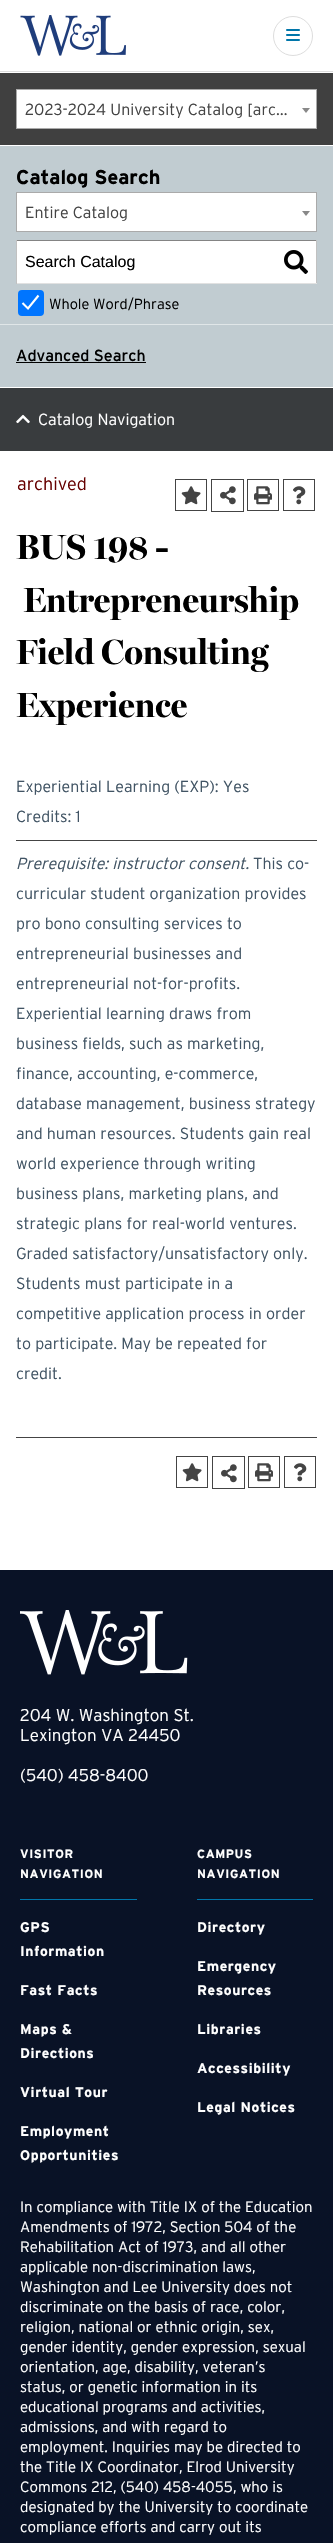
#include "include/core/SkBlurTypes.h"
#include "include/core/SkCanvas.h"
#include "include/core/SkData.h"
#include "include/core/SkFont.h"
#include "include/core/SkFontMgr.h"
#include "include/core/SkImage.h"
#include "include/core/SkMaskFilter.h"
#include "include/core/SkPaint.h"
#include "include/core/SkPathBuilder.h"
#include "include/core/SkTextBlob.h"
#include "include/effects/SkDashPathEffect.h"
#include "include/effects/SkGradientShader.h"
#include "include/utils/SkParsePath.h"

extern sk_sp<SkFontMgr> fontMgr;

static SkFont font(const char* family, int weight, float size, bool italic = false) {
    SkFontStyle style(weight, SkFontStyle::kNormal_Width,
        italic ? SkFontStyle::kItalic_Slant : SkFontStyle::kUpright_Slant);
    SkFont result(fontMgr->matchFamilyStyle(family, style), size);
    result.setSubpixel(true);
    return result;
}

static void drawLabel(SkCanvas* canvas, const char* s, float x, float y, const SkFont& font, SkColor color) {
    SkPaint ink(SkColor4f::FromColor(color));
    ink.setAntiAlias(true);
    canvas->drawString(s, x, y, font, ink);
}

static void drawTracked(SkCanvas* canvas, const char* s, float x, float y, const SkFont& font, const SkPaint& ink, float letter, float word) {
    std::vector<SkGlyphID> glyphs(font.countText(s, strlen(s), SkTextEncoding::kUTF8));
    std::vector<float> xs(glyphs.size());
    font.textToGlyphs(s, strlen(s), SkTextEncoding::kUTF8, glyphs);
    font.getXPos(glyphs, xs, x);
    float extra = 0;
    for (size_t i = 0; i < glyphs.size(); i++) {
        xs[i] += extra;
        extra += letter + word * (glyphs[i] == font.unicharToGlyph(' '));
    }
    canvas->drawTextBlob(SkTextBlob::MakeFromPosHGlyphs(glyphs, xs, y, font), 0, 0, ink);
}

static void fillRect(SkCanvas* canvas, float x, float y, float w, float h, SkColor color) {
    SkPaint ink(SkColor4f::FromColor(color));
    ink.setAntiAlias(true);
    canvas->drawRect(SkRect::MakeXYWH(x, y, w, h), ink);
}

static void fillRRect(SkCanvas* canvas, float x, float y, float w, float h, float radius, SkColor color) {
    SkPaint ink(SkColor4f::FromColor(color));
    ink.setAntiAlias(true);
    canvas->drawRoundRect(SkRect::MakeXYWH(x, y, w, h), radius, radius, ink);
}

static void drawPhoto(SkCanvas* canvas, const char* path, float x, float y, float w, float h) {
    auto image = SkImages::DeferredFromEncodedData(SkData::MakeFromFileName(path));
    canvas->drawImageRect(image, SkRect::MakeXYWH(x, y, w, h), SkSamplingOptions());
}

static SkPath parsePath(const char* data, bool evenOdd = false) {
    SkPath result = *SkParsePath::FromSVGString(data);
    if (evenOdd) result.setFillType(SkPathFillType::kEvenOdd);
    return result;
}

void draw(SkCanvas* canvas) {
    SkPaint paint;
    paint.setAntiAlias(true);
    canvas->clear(0xFFFFFFFF);
    fillRect(canvas, 0, 71, 333, 1, 0xFFDDDDDD);
    drawPhoto(canvas, "assets/img1.png", 20, 15, 106, 41);
    paint.setStroke(true);
    paint.setStrokeWidth(1);
    paint.setColor(0xFFDDDDDD);
    canvas->drawCircle(293, 36, 19.5f, paint);
    drawPhoto(canvas, "assets/img2.png", 286, 29, 14, 12);
    fillRect(canvas, 0, 73, 333, 72, 0xFF404040);
    paint.setStroke(false);
    paint.setColor(0xFFFFFFFF);
    canvas->drawRect(SkRect::MakeXYWH(16.5f, 89.5f, 300, 39), paint);
    paint.setStroke(true);
    paint.setColor(0xFFAAAAAA);
    canvas->drawRect(SkRect::MakeXYWH(16.5f, 89.5f, 300, 39), paint);
    SkFont font1 = font("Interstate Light", 300, 16);
    drawLabel(canvas, "2023-2024 University Catalog [arc…", 25, 115, font1, 0xFF444444);
    paint.setStroke(false);
    paint.setColor(0xFF888888);
    canvas->drawPath(parsePath("M302 108H310L306 113Z"), paint);
    fillRect(canvas, 0, 146, 333, 241, 0xFFC1CCD1);
    SkFont font2 = font("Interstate", 700, 20);
    drawLabel(canvas, "Catalog Search", 16, 184, font2, 0xFF000000);
    paint.setColor(0xFFFFFFFF);
    canvas->drawRect(SkRect::MakeXYWH(16.5f, 192.5f, 300, 39), paint);
    paint.setStroke(true);
    paint.setColor(0xFFAAAAAA);
    canvas->drawRect(SkRect::MakeXYWH(16.5f, 192.5f, 300, 39), paint);
    drawLabel(canvas, "Entire Catalog", 25, 218, font1, 0xFF444444);
    paint.setStroke(false);
    paint.setColor(0xFF888888);
    canvas->drawPath(parsePath("M302 211H310L306 216Z"), paint);
    fillRect(canvas, 17, 241, 299, 42, 0xFFFFFFFF);
    fillRect(canvas, 16, 240, 301, 1, 0xFF848484);
    fillRect(canvas, 316, 240, 1, 44, 0xFFC1C1C1);
    fillRect(canvas, 16, 283, 301, 1, 0xFFE1E1E1);
    fillRect(canvas, 16, 240, 1, 44, 0xFFC1C1C1);
    SkFont font3 = font("Liberation Sans", 400, 16);
    drawLabel(canvas, "Search Catalog", 25, 267, font3, 0xFF000000);
    drawPhoto(canvas, "assets/img3.png", 284, 250, 24, 24);
    fillRRect(canvas, 18, 290, 26, 26, 4, 0xFF0075FF);
    paint.setStroke(true);
    paint.setStrokeWidth(2.1f);
    paint.setColor(0xFFFFFFFF);
    canvas->drawPath(parsePath("M22.5 303L28 308.5L38.5 295.5"), paint);
    SkFont font4 = font("Interstate Light", 300, 14.5f);
    drawLabel(canvas, "Whole Word/Phrase", 49, 309, font4, 0xFF000000);
    fillRect(canvas, 0, 324, 333, 1, 0xFFE0E6E8);
    SkFont font5 = font("Interstate", 400, 16);
    drawLabel(canvas, "Advanced Search", 16, 361, font5, 0xFF000000);
    fillRect(canvas, 16, 362, 130, 1, 0xFF000000);
    fillRect(canvas, 0, 388, 333, 63, 0xFF393C3E);
    drawPhoto(canvas, "assets/img4.png", 16, 414, 14, 10);
    drawLabel(canvas, "Catalog Navigation", 38, 425, font1, 0xFFFFFFFF);
    SkFont font6 = font("Interstate Light", 300, 18);
    drawLabel(canvas, "archived", 17, 490, font6, 0xFF660000);
    paint.setStrokeWidth(1);
    paint.setColor(0xFF444444);
    canvas->drawRect(SkRect::MakeXYWH(175.5f, 479.5f, 31, 31), paint);
    drawPhoto(canvas, "assets/img5.png", 181, 486, 20, 19);
    canvas->drawRect(SkRect::MakeXYWH(211.5f, 479.5f, 32, 32), paint);
    drawPhoto(canvas, "assets/img6.png", 220, 486, 16, 19);
    canvas->drawRect(SkRect::MakeXYWH(247.5f, 479.5f, 31, 31), paint);
    drawPhoto(canvas, "assets/img7.png", 254, 486, 18, 19);
    canvas->drawRect(SkRect::MakeXYWH(283.5f, 479.5f, 31, 31), paint);
    drawPhoto(canvas, "assets/img8.png", 293, 486, 13, 19);
    SkFont font7 = font("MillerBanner", 700, 35);
    drawLabel(canvas, "BUS 198 -", 16, 559, font7, 0xFF000000);
    drawLabel(canvas, "Entrepreneurship", 23, 612, font7, 0xFF000000);
    drawLabel(canvas, "Field Consulting", 16, 664, font7, 0xFF000000);
    drawLabel(canvas, "Experience", 16, 717, font7, 0xFF000000);
    drawLabel(canvas, "Experiential Learning (EXP): Yes", 16, 792, font1, 0xFF415464);
    drawLabel(canvas, "Credits: 1", 16, 822, font1, 0xFF415464);
    fillRect(canvas, 16, 840, 301, 1, 0xFF444444);
    SkFont font8 = font("Interstate Light", 300, 16, true);
    drawLabel(canvas, "Prerequisite: instructor consent.", 16, 869, font8, 0xFF415464);
    drawLabel(canvas, "This co-", 253, 869, font1, 0xFF415464);
    drawLabel(canvas, "curricular student organization provides", 16, 899, font1, 0xFF415464);
    drawLabel(canvas, "pro bono consulting services to", 16, 929, font1, 0xFF415464);
    drawLabel(canvas, "entrepreneurial businesses and", 16, 959, font1, 0xFF415464);
    drawLabel(canvas, "entrepreneurial not-for-profits.", 16, 989, font1, 0xFF415464);
    drawLabel(canvas, "Experiential learning draws from", 16, 1019, font1, 0xFF415464);
    drawLabel(canvas, "business fields, such as marketing,", 16, 1049, font1, 0xFF415464);
    drawLabel(canvas, "finance, accounting, e-commerce,", 16, 1079, font1, 0xFF415464);
    drawLabel(canvas, "database management, business strategy", 16, 1109, font1, 0xFF415464);
    drawLabel(canvas, "and human resources. Students gain real", 16, 1139, font1, 0xFF415464);
    drawLabel(canvas, "world experience through writing", 16, 1169, font1, 0xFF415464);
    drawLabel(canvas, "business plans, marketing plans, and", 16, 1199, font1, 0xFF415464);
    drawLabel(canvas, "strategic plans for real-world ventures.", 16, 1229, font1, 0xFF415464);
    drawLabel(canvas, "Graded satisfactory/unsatisfactory only.", 16, 1259, font1, 0xFF415464);
    drawLabel(canvas, "Students must participate in a", 16, 1289, font1, 0xFF415464);
    drawLabel(canvas, "competitive application process in order", 16, 1319, font1, 0xFF415464);
    drawLabel(canvas, "to participate. May be repeated for", 16, 1349, font1, 0xFF415464);
    drawLabel(canvas, "credit.", 16, 1379, font1, 0xFF415464);
    fillRect(canvas, 16, 1437, 301, 1, 0xFF444444);
    canvas->drawRect(SkRect::MakeXYWH(176.5f, 1456.5f, 31, 31), paint);
    drawPhoto(canvas, "assets/img5.png", 182, 1463, 20, 19);
    canvas->drawRect(SkRect::MakeXYWH(212.5f, 1456.5f, 32, 32), paint);
    drawPhoto(canvas, "assets/img6.png", 221, 1464, 16, 19);
    canvas->drawRect(SkRect::MakeXYWH(248.5f, 1456.5f, 31, 31), paint);
    drawPhoto(canvas, "assets/img7.png", 255, 1463, 18, 19);
    canvas->drawRect(SkRect::MakeXYWH(284.5f, 1456.5f, 31, 31), paint);
    drawPhoto(canvas, "assets/img8.png", 294, 1463, 13, 19);
    fillRect(canvas, 0, 1570, 333, 973, 0xFF091226);
    drawPhoto(canvas, "assets/img9.png", 20, 1610, 168, 65);
    SkFont font9 = font("Interstate Light", 300, 17);
    drawLabel(canvas, "204 W. Washington St.", 20, 1721, font9, 0xFFFFFFFF);
    drawLabel(canvas, "Lexington VA 24450", 20, 1741, font9, 0xFFFFFFFF);
    drawLabel(canvas, "(540) 458-8400", 20, 1781, font9, 0xFFFFFFFF);
    SkFont font10 = font("Interstate", 700, 12);
    paint.setStroke(false);
    paint.setColor(0xFFFFFFFF);
    drawTracked(canvas, "VISITOR", 20, 1858, font10, paint, 0.6f, 0);
    drawTracked(canvas, "NAVIGATION", 20, 1878, font10, paint, 0.6f, 0);
    fillRect(canvas, 20, 1899, 117, 1, 0xFF0076AA);
    SkFont font11 = font("Interstate", 700, 14);
    drawTracked(canvas, "GPS", 20, 1932, font11, paint, 0.6f, 0);
    drawTracked(canvas, "Information", 20, 1956, font11, paint, 0.6f, 0);
    drawTracked(canvas, "Fast Facts", 20, 1995, font11, paint, 0.6f, 0);
    drawTracked(canvas, "Maps &", 20, 2034, font11, paint, 0.6f, 0);
    drawTracked(canvas, "Directions", 20, 2058, font11, paint, 0.6f, 0);
    drawTracked(canvas, "Virtual Tour", 20, 2097, font11, paint, 0.6f, 0);
    drawTracked(canvas, "Employment", 20, 2136, font11, paint, 0.6f, 0);
    drawTracked(canvas, "Opportunities", 20, 2160, font11, paint, 0.6f, 0);
    drawTracked(canvas, "CAMPUS", 197, 1858, font10, paint, 0.6f, 0);
    drawTracked(canvas, "NAVIGATION", 197, 1878, font10, paint, 0.6f, 0);
    fillRect(canvas, 197, 1899, 116, 1, 0xFF0076AA);
    drawTracked(canvas, "Directory", 197, 1932, font11, paint, 0.6f, 0);
    drawTracked(canvas, "Emergency", 197, 1971, font11, paint, 0.6f, 0);
    drawTracked(canvas, "Resources", 197, 1995, font11, paint, 0.6f, 0);
    drawTracked(canvas, "Libraries", 197, 2034, font11, paint, 0.6f, 0);
    drawTracked(canvas, "Accessibility", 197, 2073, font11, paint, 0.6f, 0);
    drawTracked(canvas, "Legal Notices", 197, 2112, font11, paint, 0.6f, 0);
    SkFont font12 = font("Interstate Light", 300, 15);
    drawLabel(canvas, "In compliance with Title IX of the Education", 20, 2212, font12, 0xFFFFFFFF);
    drawLabel(canvas, "Amendments of 1972, Section 504 of the", 20, 2232, font12, 0xFFFFFFFF);
    drawLabel(canvas, "Rehabilitation Act of 1973, and all other", 20, 2252, font12, 0xFFFFFFFF);
    drawLabel(canvas, "applicable non-discrimination laws,", 20, 2272, font12, 0xFFFFFFFF);
    drawLabel(canvas, "Washington and Lee University does not", 20, 2292, font12, 0xFFFFFFFF);
    drawLabel(canvas, "discriminate on the basis of race, color,", 20, 2312, font12, 0xFFFFFFFF);
    drawLabel(canvas, "religion, national or ethnic origin, sex,", 20, 2332, font12, 0xFFFFFFFF);
    drawLabel(canvas, "gender identity, gender expression, sexual", 20, 2352, font12, 0xFFFFFFFF);
    drawLabel(canvas, "orientation, age, disability, veteran’s", 20, 2372, font12, 0xFFFFFFFF);
    drawLabel(canvas, "status, or genetic information in its", 20, 2392, font12, 0xFFFFFFFF);
    drawLabel(canvas, "educational programs and activities,", 20, 2412, font12, 0xFFFFFFFF);
    drawLabel(canvas, "admissions, and with regard to", 20, 2432, font12, 0xFFFFFFFF);
    drawLabel(canvas, "employment. Inquiries may be directed to", 20, 2452, font12, 0xFFFFFFFF);
    drawLabel(canvas, "the Title IX Coordinator, Elrod University", 20, 2472, font12, 0xFFFFFFFF);
    drawLabel(canvas, "Commons 212, (540) 458-4055, who is", 20, 2492, font12, 0xFFFFFFFF);
    drawLabel(canvas, "designated by the University to coordinate", 20, 2512, font12, 0xFFFFFFFF);
    drawLabel(canvas, "compliance efforts and carry out its", 20, 2532, font12, 0xFFFFFFFF);
}
